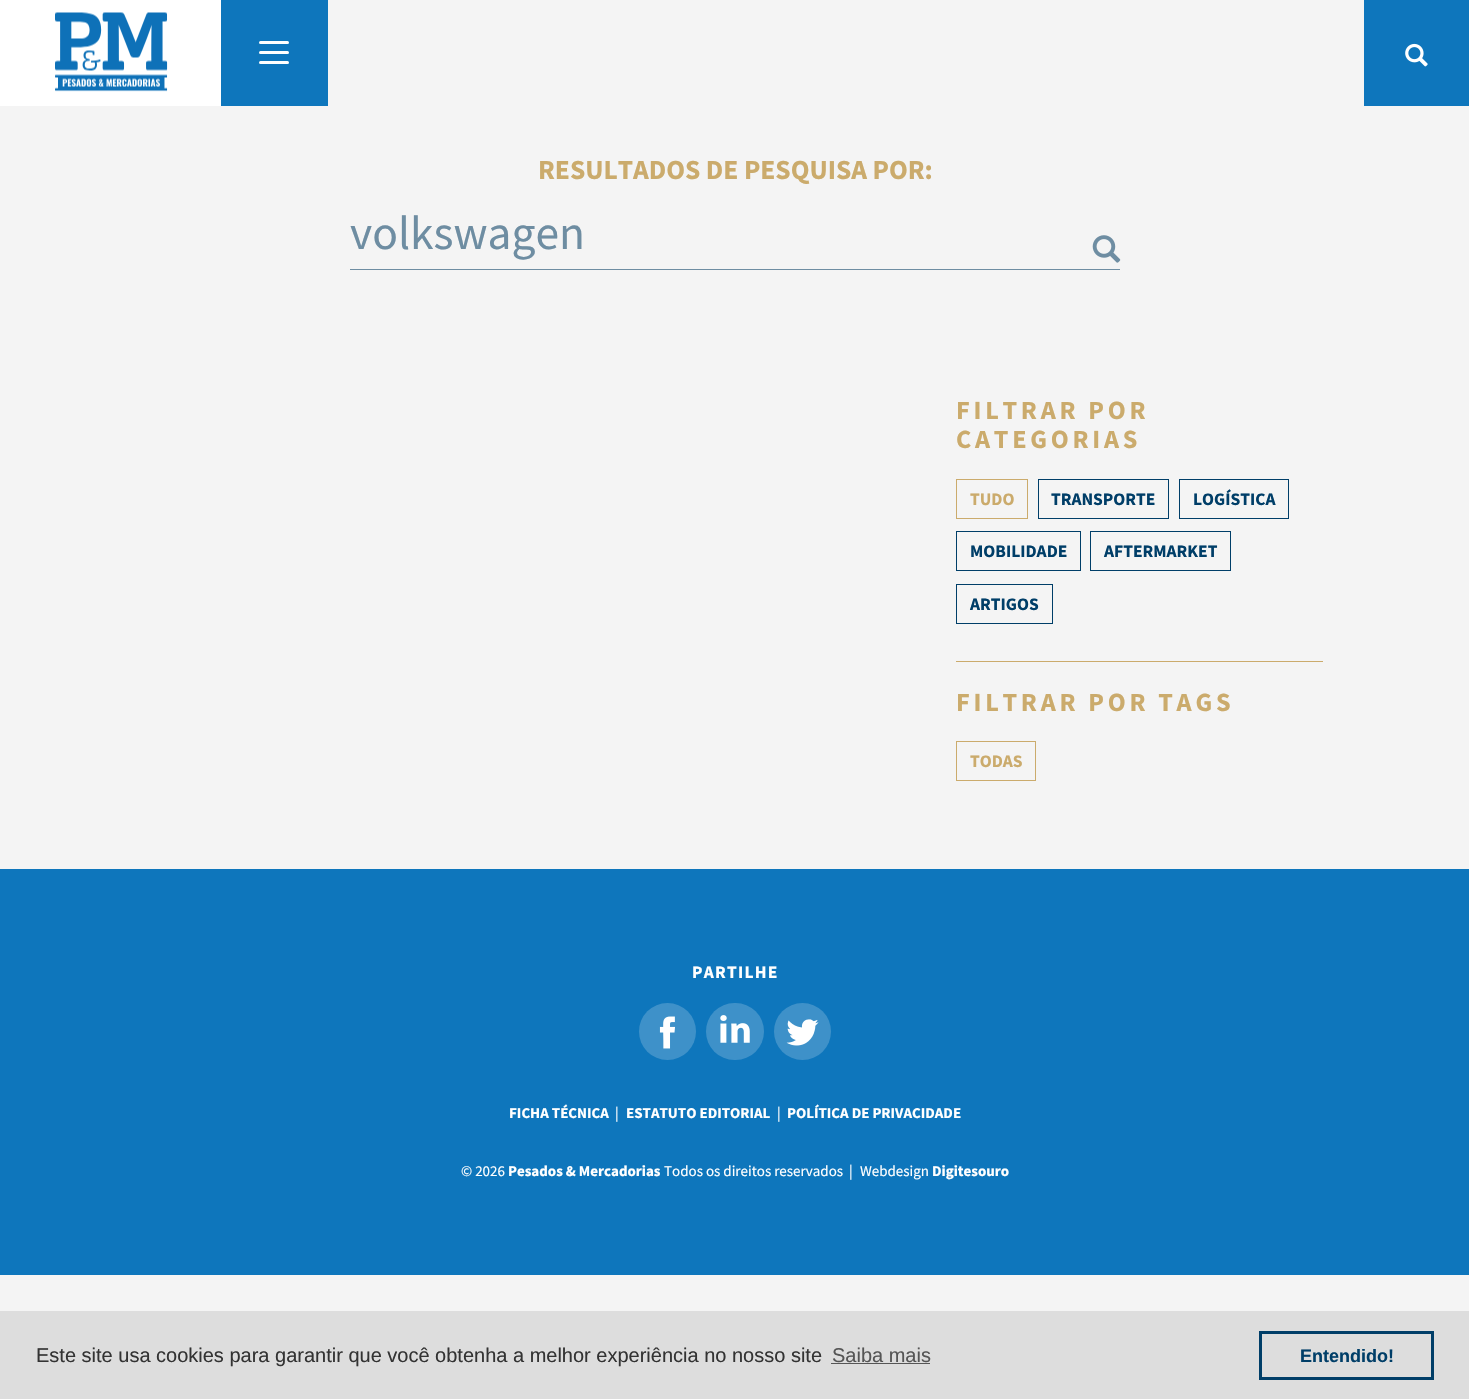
#include "include/core/SkBlurTypes.h"
#include "include/core/SkCanvas.h"
#include "include/core/SkData.h"
#include "include/core/SkFont.h"
#include "include/core/SkFontMgr.h"
#include "include/core/SkImage.h"
#include "include/core/SkMaskFilter.h"
#include "include/core/SkPaint.h"
#include "include/core/SkPathBuilder.h"
#include "include/core/SkTextBlob.h"
#include "include/effects/SkDashPathEffect.h"
#include "include/effects/SkGradientShader.h"
#include "include/utils/SkParsePath.h"

extern sk_sp<SkFontMgr> fontMgr;

static SkFont font(const char* family, int weight, float size, bool italic = false) {
    SkFontStyle style(weight, SkFontStyle::kNormal_Width,
        italic ? SkFontStyle::kItalic_Slant : SkFontStyle::kUpright_Slant);
    SkFont result(fontMgr->matchFamilyStyle(family, style), size);
    result.setSubpixel(true);
    return result;
}

static void drawLabel(SkCanvas* canvas, const char* s, float x, float y, const SkFont& font, SkColor color) {
    SkPaint ink(SkColor4f::FromColor(color));
    ink.setAntiAlias(true);
    canvas->drawString(s, x, y, font, ink);
}

static void drawTracked(SkCanvas* canvas, const char* s, float x, float y, const SkFont& font, const SkPaint& ink, float letter, float word) {
    std::vector<SkGlyphID> glyphs(font.countText(s, strlen(s), SkTextEncoding::kUTF8));
    std::vector<float> xs(glyphs.size());
    font.textToGlyphs(s, strlen(s), SkTextEncoding::kUTF8, glyphs);
    font.getXPos(glyphs, xs, x);
    float extra = 0;
    for (size_t i = 0; i < glyphs.size(); i++) {
        xs[i] += extra;
        extra += letter + word * (glyphs[i] == font.unicharToGlyph(' '));
    }
    canvas->drawTextBlob(SkTextBlob::MakeFromPosHGlyphs(glyphs, xs, y, font), 0, 0, ink);
}

static void fillRect(SkCanvas* canvas, float x, float y, float w, float h, SkColor color) {
    SkPaint ink(SkColor4f::FromColor(color));
    ink.setAntiAlias(true);
    canvas->drawRect(SkRect::MakeXYWH(x, y, w, h), ink);
}

static void fillRRect(SkCanvas* canvas, float x, float y, float w, float h, float radius, SkColor color) {
    SkPaint ink(SkColor4f::FromColor(color));
    ink.setAntiAlias(true);
    canvas->drawRoundRect(SkRect::MakeXYWH(x, y, w, h), radius, radius, ink);
}

static void drawPhoto(SkCanvas* canvas, const char* path, float x, float y, float w, float h) {
    auto image = SkImages::DeferredFromEncodedData(SkData::MakeFromFileName(path));
    canvas->drawImageRect(image, SkRect::MakeXYWH(x, y, w, h), SkSamplingOptions());
}

void draw(SkCanvas* canvas) {
    SkPaint paint;
    paint.setAntiAlias(true);
    canvas->clear(0xFFF4F4F4);
    fillRect(canvas, 0, 0, 221, 106, 0xFFFFFFFF);
    drawPhoto(canvas, "assets/img1.png", 55, 12, 113, 80);
    fillRect(canvas, 221, 0, 107, 106, 0xFF0E76BC);
    fillRRect(canvas, 259, 51, 30, 3, 1.5f, 0xFFFFFFFF);
    fillRRect(canvas, 259, 41, 30, 3, 1.5f, 0xFFFFFFFF);
    fillRRect(canvas, 259, 61, 30, 3, 1.5f, 0xFFFFFFFF);
    fillRect(canvas, 1364, 0, 105, 106, 0xFF0E76BC);
    drawPhoto(canvas, "assets/img2.png", 1405, 43, 23, 24);
    SkFont font1 = font("Source Sans Pro", 700, 27.5f);
    drawLabel(canvas, "RESULTADOS DE PESQUISA POR:", 538, 179, font1, 0xFFCBAB6C);
    fillRect(canvas, 350, 269, 770, 1, 0xFF6E8DA2);
    SkFont font2 = font("Source Sans Pro", 400, 47.5f);
    drawLabel(canvas, "volkswagen", 350, 249, font2, 0xFF6E8DA2);
    drawPhoto(canvas, "assets/img3.png", 1092, 235, 29, 28);
    SkFont font3 = font("Source Sans Pro", 700, 26.25f);
    paint.setColor(0xFFCBAB6C);
    drawTracked(canvas, "FILTRAR POR", 956, 419, font3, paint, 3.75f, 0);
    drawTracked(canvas, "CATEGORIAS", 956, 448, font3, paint, 3.75f, 0);
    paint.setStroke(true);
    paint.setStrokeWidth(1);
    canvas->drawRect(SkRect::MakeXYWH(956.5f, 479.5f, 71, 39), paint);
    SkFont font4 = font("Source Sans Pro", 700, 17.5f);
    drawLabel(canvas, "TUDO", 970, 505, font4, 0xFFCBAB6C);
    paint.setColor(0xFF003E68);
    canvas->drawRect(SkRect::MakeXYWH(1038.5f, 479.5f, 130, 39), paint);
    drawLabel(canvas, "TRANSPORTE", 1051, 505, font4, 0xFF003E68);
    canvas->drawRect(SkRect::MakeXYWH(1179.5f, 479.5f, 109, 39), paint);
    drawLabel(canvas, "LOGÍSTICA", 1193, 505, font4, 0xFF003E68);
    canvas->drawRect(SkRect::MakeXYWH(956.5f, 531.5f, 124, 39), paint);
    drawLabel(canvas, "MOBILIDADE", 970, 557, font4, 0xFF003E68);
    canvas->drawRect(SkRect::MakeXYWH(1090.5f, 531.5f, 140, 39), paint);
    drawLabel(canvas, "AFTERMARKET", 1104, 557, font4, 0xFF003E68);
    canvas->drawRect(SkRect::MakeXYWH(956.5f, 584.5f, 96, 39), paint);
    drawLabel(canvas, "ARTIGOS", 970, 610, font4, 0xFF003E68);
    fillRect(canvas, 956, 661, 367, 1, 0xFFCBAB6C);
    paint.setStroke(false);
    paint.setColor(0xFFCBAB6C);
    drawTracked(canvas, "FILTRAR POR TAGS", 956, 711, font3, paint, 3.75f, 0);
    paint.setStroke(true);
    canvas->drawRect(SkRect::MakeXYWH(956.5f, 741.5f, 79, 39), paint);
    drawLabel(canvas, "TODAS", 970, 767, font4, 0xFFCBAB6C);
    fillRect(canvas, 0, 869, 1469, 406, 0xFF0E76BC);
    paint.setStroke(false);
    paint.setColor(0xFFFFFFFF);
    drawTracked(canvas, "PARTILHE", 692, 978, font4, paint, 1.25f, 0);
    paint.setColor(0xFF3E91C9);
    canvas->drawCircle(667.5f, 1031.5f, 28.5f, paint);
    drawPhoto(canvas, "assets/img4.png", 659, 1016, 16, 33);
    fillRRect(canvas, 706, 1003, 58, 57, 28.5f, 0xFF3E91C9);
    drawPhoto(canvas, "assets/img5.png", 720, 1015, 30, 28);
    canvas->drawCircle(802.5f, 1031.5f, 28.5f, paint);
    drawPhoto(canvas, "assets/img6.png", 786, 1019, 33, 27);
    SkFont font5 = font("Source Sans Pro", 700, 15);
    drawLabel(canvas, "FICHA TÉCNICA", 509, 1118, font5, 0xFFFFFFFF);
    SkFont font6 = font("Source Sans Pro", 400, 15);
    drawLabel(canvas, "|", 615, 1118, font6, 0xFFFFFFFF);
    drawLabel(canvas, "ESTATUTO EDITORIAL", 626, 1118, font5, 0xFFFFFFFF);
    drawLabel(canvas, "|", 777, 1118, font6, 0xFFFFFFFF);
    drawLabel(canvas, "POLÍTICA DE PRIVACIDADE", 787, 1118, font5, 0xFFFFFFFF);
    drawLabel(canvas, "© 2026", 461, 1176, font6, 0xFFFFFFFF);
    drawLabel(canvas, "Pesados & Mercadorias", 508, 1176, font5, 0xFFFFFFFF);
    drawLabel(canvas, "Todos os direitos reservados", 664, 1176, font6, 0xFFFFFFFF);
    drawLabel(canvas, "|", 849, 1176, font6, 0xFFFFFFFF);
    drawLabel(canvas, "Webdesign", 860, 1176, font6, 0xFFFFFFFF);
    drawLabel(canvas, "Digitesouro", 932, 1176, font5, 0xFFFFFFFF);
    fillRect(canvas, 0, 1311, 1469, 88, 0xFFDDDDDD);
    SkFont font7 = font("Liberation Sans", 400, 20);
    drawLabel(canvas, "Este site usa cookies para garantir que você obtenha a melhor experiência no nosso site", 36, 1362, font7, 0xFF333333);
    drawLabel(canvas, "Saiba mais", 832, 1362, font7, 0xFF555555);
    fillRect(canvas, 831, 1363, 99, 1, 0xFF555555);
    paint.setStroke(true);
    paint.setStrokeWidth(3);
    paint.setColor(0xFF003E68);
    canvas->drawRect(SkRect::MakeXYWH(1260.5f, 1332.5f, 172, 46), paint);
    SkFont font8 = font("Liberation Sans", 700, 18);
    drawLabel(canvas, "Entendido!", 1300, 1362, font8, 0xFF003E68);
}
